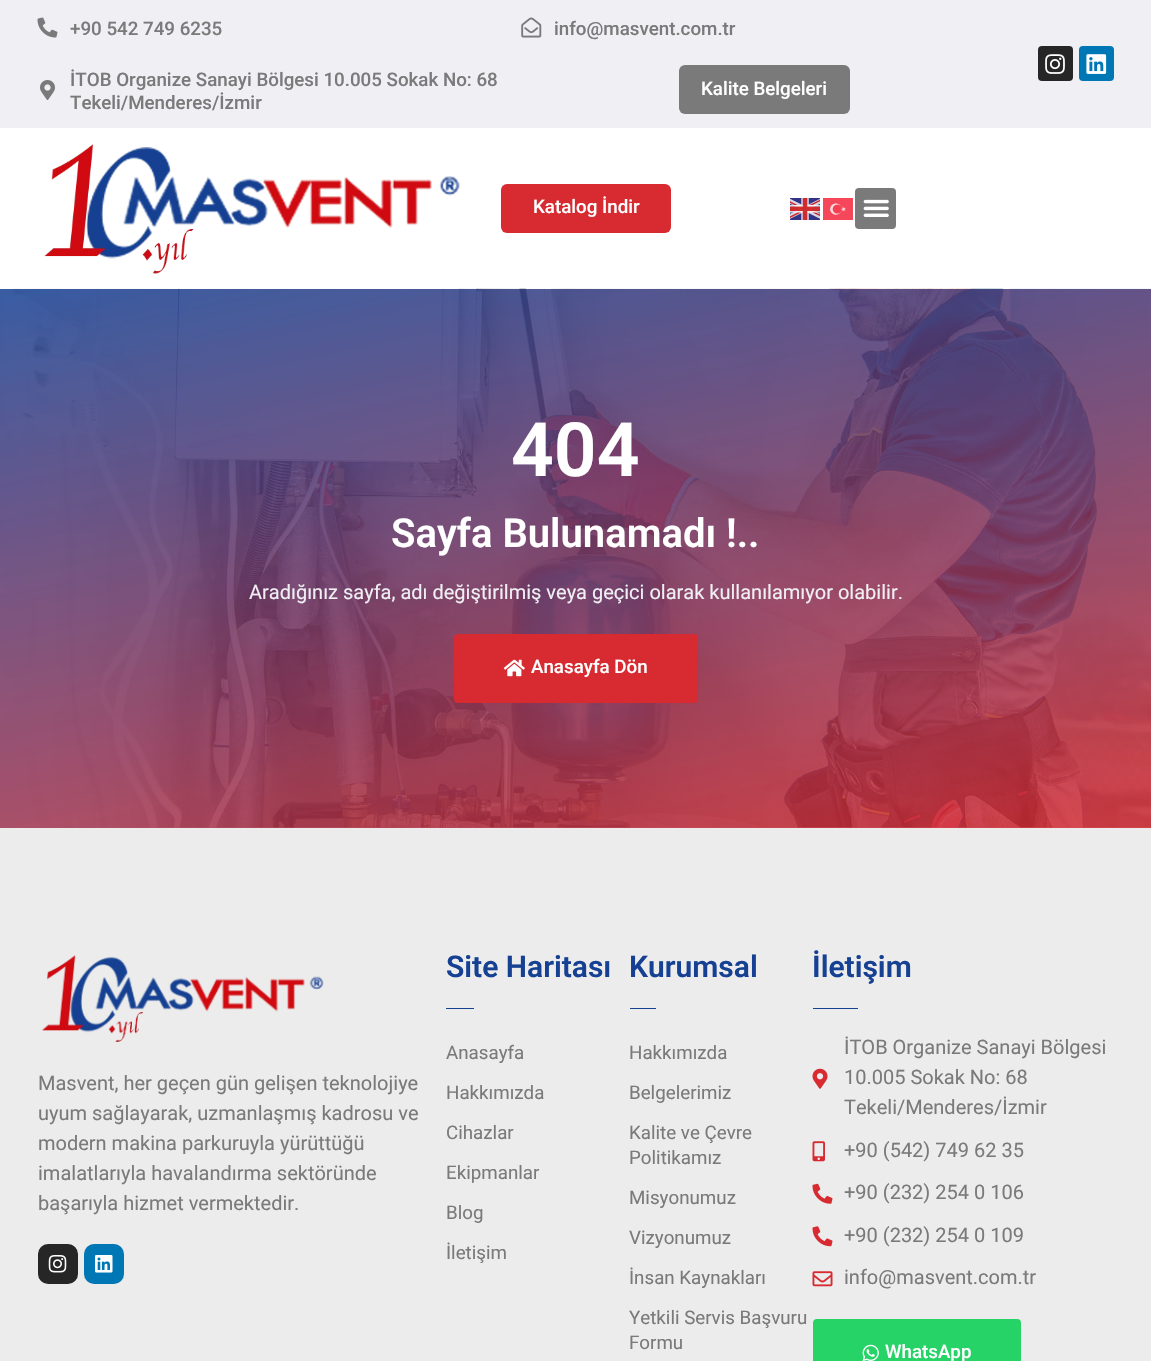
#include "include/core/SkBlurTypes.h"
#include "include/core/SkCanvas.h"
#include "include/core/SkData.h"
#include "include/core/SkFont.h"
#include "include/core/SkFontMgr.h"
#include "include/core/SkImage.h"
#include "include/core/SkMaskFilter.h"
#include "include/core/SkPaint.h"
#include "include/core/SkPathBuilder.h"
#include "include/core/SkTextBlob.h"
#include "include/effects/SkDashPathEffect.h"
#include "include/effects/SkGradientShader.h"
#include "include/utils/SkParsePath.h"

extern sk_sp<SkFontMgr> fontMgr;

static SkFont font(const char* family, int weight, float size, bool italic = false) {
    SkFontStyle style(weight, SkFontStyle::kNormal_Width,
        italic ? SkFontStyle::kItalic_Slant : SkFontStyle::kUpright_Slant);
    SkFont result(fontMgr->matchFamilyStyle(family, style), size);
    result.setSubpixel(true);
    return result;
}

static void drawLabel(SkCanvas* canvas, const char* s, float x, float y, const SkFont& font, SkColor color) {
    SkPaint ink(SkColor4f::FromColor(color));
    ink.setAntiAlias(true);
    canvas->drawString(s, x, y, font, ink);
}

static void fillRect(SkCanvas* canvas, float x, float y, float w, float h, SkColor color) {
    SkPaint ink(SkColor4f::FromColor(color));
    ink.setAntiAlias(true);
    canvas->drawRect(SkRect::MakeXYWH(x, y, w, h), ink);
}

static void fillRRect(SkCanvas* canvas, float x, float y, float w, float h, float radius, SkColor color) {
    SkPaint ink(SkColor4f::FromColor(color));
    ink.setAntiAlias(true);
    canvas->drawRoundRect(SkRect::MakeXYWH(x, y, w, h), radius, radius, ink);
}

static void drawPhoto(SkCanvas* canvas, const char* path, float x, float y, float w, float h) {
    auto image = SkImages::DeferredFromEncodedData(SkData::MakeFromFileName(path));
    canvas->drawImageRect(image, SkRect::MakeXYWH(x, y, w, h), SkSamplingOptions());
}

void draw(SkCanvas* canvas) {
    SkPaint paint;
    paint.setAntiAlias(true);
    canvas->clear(0xFFFFFFFF);
    fillRect(canvas, 0, 0, 1151, 128, 0xFFF0EFF4);
    drawPhoto(canvas, "assets/img1.png", 37, 17, 21, 21);
    SkFont font1 = font("Roboto", 500, 18.75f);
    drawLabel(canvas, "+90 542 749 6235", 70, 35, font1, 0xFF7A7A7A);
    drawPhoto(canvas, "assets/img2.png", 521, 17, 21, 21);
    drawLabel(canvas, "info@masvent.com.tr", 554, 35, font1, 0xFF7A7A7A);
    drawPhoto(canvas, "assets/img3.png", 40, 80, 15, 20);
    drawLabel(canvas, "İTOB Organize Sanayi Bölgesi 10.005 Sokak No: 68", 70, 86, font1, 0xFF7A7A7A);
    drawLabel(canvas, "Tekeli/Menderes/İzmir", 70, 109, font1, 0xFF7A7A7A);
    fillRRect(canvas, 679, 65, 171, 49, 6, 0xFF7A7A7A);
    drawLabel(canvas, "Kalite Belgeleri", 701, 95, font1, 0xFFFFFFFF);
    fillRRect(canvas, 1038, 46, 35, 35, 4, 0xFF262626);
    drawPhoto(canvas, "assets/img4.png", 1045, 54, 20, 20);
    fillRRect(canvas, 1079, 46, 35, 35, 4, 0xFF0077B5);
    drawPhoto(canvas, "assets/img5.png", 1086, 54, 21, 20);
    drawPhoto(canvas, "assets/img6.png", 44, 144, 416, 130);
    fillRRect(canvas, 501, 184, 170, 49, 6, 0xFFD72B31);
    drawLabel(canvas, "Katalog İndir", 533, 213, font1, 0xFFFFFFFF);
    drawPhoto(canvas, "assets/img7.png", 790, 198, 30, 22);
    drawPhoto(canvas, "assets/img8.png", 823, 198, 30, 22);
    fillRRect(canvas, 855, 188, 41, 41, 4, 0xFF7A7A7A);
    drawPhoto(canvas, "assets/img9.png", 863, 199, 26, 18);
    drawPhoto(canvas, "assets/img10.png", 0, 288, 1151, 540);
    {
        const SkColor colors[] = {0xD9164193, 0xD9D72B31};
        const float stops[] = {0, 1};
        const SkPoint ends[] = {{496, 183}, {655, 933}};
        paint.setShader(SkGradientShader::MakeLinear(ends, colors, stops, 2, SkTileMode::kClamp));
        paint.setAlpha(255);
    }
    canvas->drawRect(SkRect::MakeXYWH(0, 289, 1151, 539), paint);
    SkFont font2 = font("Roboto", 600, 75);
    drawLabel(canvas, "404", 511, 476, font2, 0xFFFFFFFF);
    SkFont font3 = font("Roboto", 600, 40);
    drawLabel(canvas, "Sayfa Bulunamadı !..", 391, 547, font3, 0xFFFFFFFF);
    SkFont font4 = font("Roboto", 400, 20);
    drawLabel(canvas, "Aradığınız sayfa, adı değiştirilmiş veya geçici olarak kullanılamıyor olabilir.", 249, 599, font4, 0xFFF0EFF4);
    fillRRect(canvas, 454, 634, 244, 69, 4, 0xFFD72B31);
    drawPhoto(canvas, "assets/img11.png", 503, 659, 22, 18);
    drawLabel(canvas, "Anasayfa Dön", 531, 673, font1, 0xFFFFFFFF);
    fillRect(canvas, 0, 828, 1151, 533, 0xFFECECEC);
    drawPhoto(canvas, "assets/img12.png", 42, 955, 282, 87);
    drawLabel(canvas, "Masvent, her geçen gün gelişen teknolojiye", 38, 1090, font4, 0xFF7A7A7A);
    drawLabel(canvas, "uyum sağlayarak, uzmanlaşmış kadrosu ve", 38, 1120, font4, 0xFF7A7A7A);
    drawLabel(canvas, "modern makina parkuruyla yürüttüğü", 38, 1150, font4, 0xFF7A7A7A);
    drawLabel(canvas, "imalatlarıyla havalandırma sektöründe", 38, 1180, font4, 0xFF7A7A7A);
    drawLabel(canvas, "başarıyla hizmet vermektedir.", 38, 1210, font4, 0xFF7A7A7A);
    fillRRect(canvas, 38, 1244, 40, 40, 10, 0xFF262626);
    drawPhoto(canvas, "assets/img13.png", 48, 1254, 19, 19);
    fillRRect(canvas, 84, 1244, 40, 40, 10, 0xFF0077B5);
    drawPhoto(canvas, "assets/img14.png", 95, 1255, 18, 18);
    SkFont font5 = font("Roboto", 600, 30);
    drawLabel(canvas, "Site Haritası", 446, 977, font5, 0xFF164193);
    fillRect(canvas, 446, 1008, 28, 1, 0xFF164193);
    SkFont font6 = font("Roboto", 400, 18.75f);
    drawLabel(canvas, "Anasayfa", 446, 1059, font6, 0xFF7A7A7A);
    drawLabel(canvas, "Hakkımızda", 446, 1099, font6, 0xFF7A7A7A);
    drawLabel(canvas, "Cihazlar", 446, 1139, font6, 0xFF7A7A7A);
    drawLabel(canvas, "Ekipmanlar", 446, 1179, font6, 0xFF7A7A7A);
    drawLabel(canvas, "Blog", 446, 1219, font6, 0xFF7A7A7A);
    drawLabel(canvas, "İletişim", 446, 1259, font6, 0xFF7A7A7A);
    drawLabel(canvas, "Kurumsal", 629, 977, font5, 0xFF164193);
    fillRect(canvas, 630, 1008, 26, 1, 0xFF164193);
    drawLabel(canvas, "Hakkımızda", 629, 1059, font6, 0xFF7A7A7A);
    drawLabel(canvas, "Belgelerimiz", 629, 1099, font6, 0xFF7A7A7A);
    drawLabel(canvas, "Kalite ve Çevre", 629, 1139, font6, 0xFF7A7A7A);
    drawLabel(canvas, "Politikamız", 629, 1164, font6, 0xFF7A7A7A);
    drawLabel(canvas, "Misyonumuz", 629, 1204, font6, 0xFF7A7A7A);
    drawLabel(canvas, "Vizyonumuz", 629, 1244, font6, 0xFF7A7A7A);
    drawLabel(canvas, "İnsan Kaynakları", 629, 1284, font6, 0xFF7A7A7A);
    drawLabel(canvas, "Yetkili Servis Başvuru", 629, 1324, font6, 0xFF7A7A7A);
    drawLabel(canvas, "Formu", 629, 1349, font6, 0xFF7A7A7A);
    drawLabel(canvas, "İletişim", 812, 977, font5, 0xFF164193);
    fillRect(canvas, 813, 1008, 45, 1, 0xFF164193);
    drawPhoto(canvas, "assets/img15.png", 812, 1068, 16, 21);
    drawLabel(canvas, "İTOB Organize Sanayi Bölgesi", 844, 1054, font4, 0xFF7A7A7A);
    drawLabel(canvas, "10.005 Sokak No: 68", 844, 1084, font4, 0xFF7A7A7A);
    drawLabel(canvas, "Tekeli/Menderes/İzmir", 844, 1114, font4, 0xFF7A7A7A);
    drawPhoto(canvas, "assets/img16.png", 812, 1141, 13, 21);
    drawLabel(canvas, "+90 (542) 749 62 35", 844, 1157, font4, 0xFF7A7A7A);
    drawPhoto(canvas, "assets/img17.png", 812, 1183, 21, 21);
    drawLabel(canvas, "+90 (232) 254 0 106", 844, 1199, font4, 0xFF7A7A7A);
    drawPhoto(canvas, "assets/img18.png", 812, 1226, 21, 21);
    drawLabel(canvas, "+90 (232) 254 0 109", 844, 1242, font4, 0xFF7A7A7A);
    drawPhoto(canvas, "assets/img19.png", 812, 1271, 21, 16);
    drawLabel(canvas, "info@masvent.com.tr", 844, 1284, font4, 0xFF7A7A7A);
    fillRRect(canvas, 813, 1319, 208, 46, 4, 0xFF25D366);
    drawPhoto(canvas, "assets/img20.png", 862, 1344, 17, 17);
    drawLabel(canvas, "WhatsApp", 885, 1358, font1, 0xFFFFFFFF);
}
